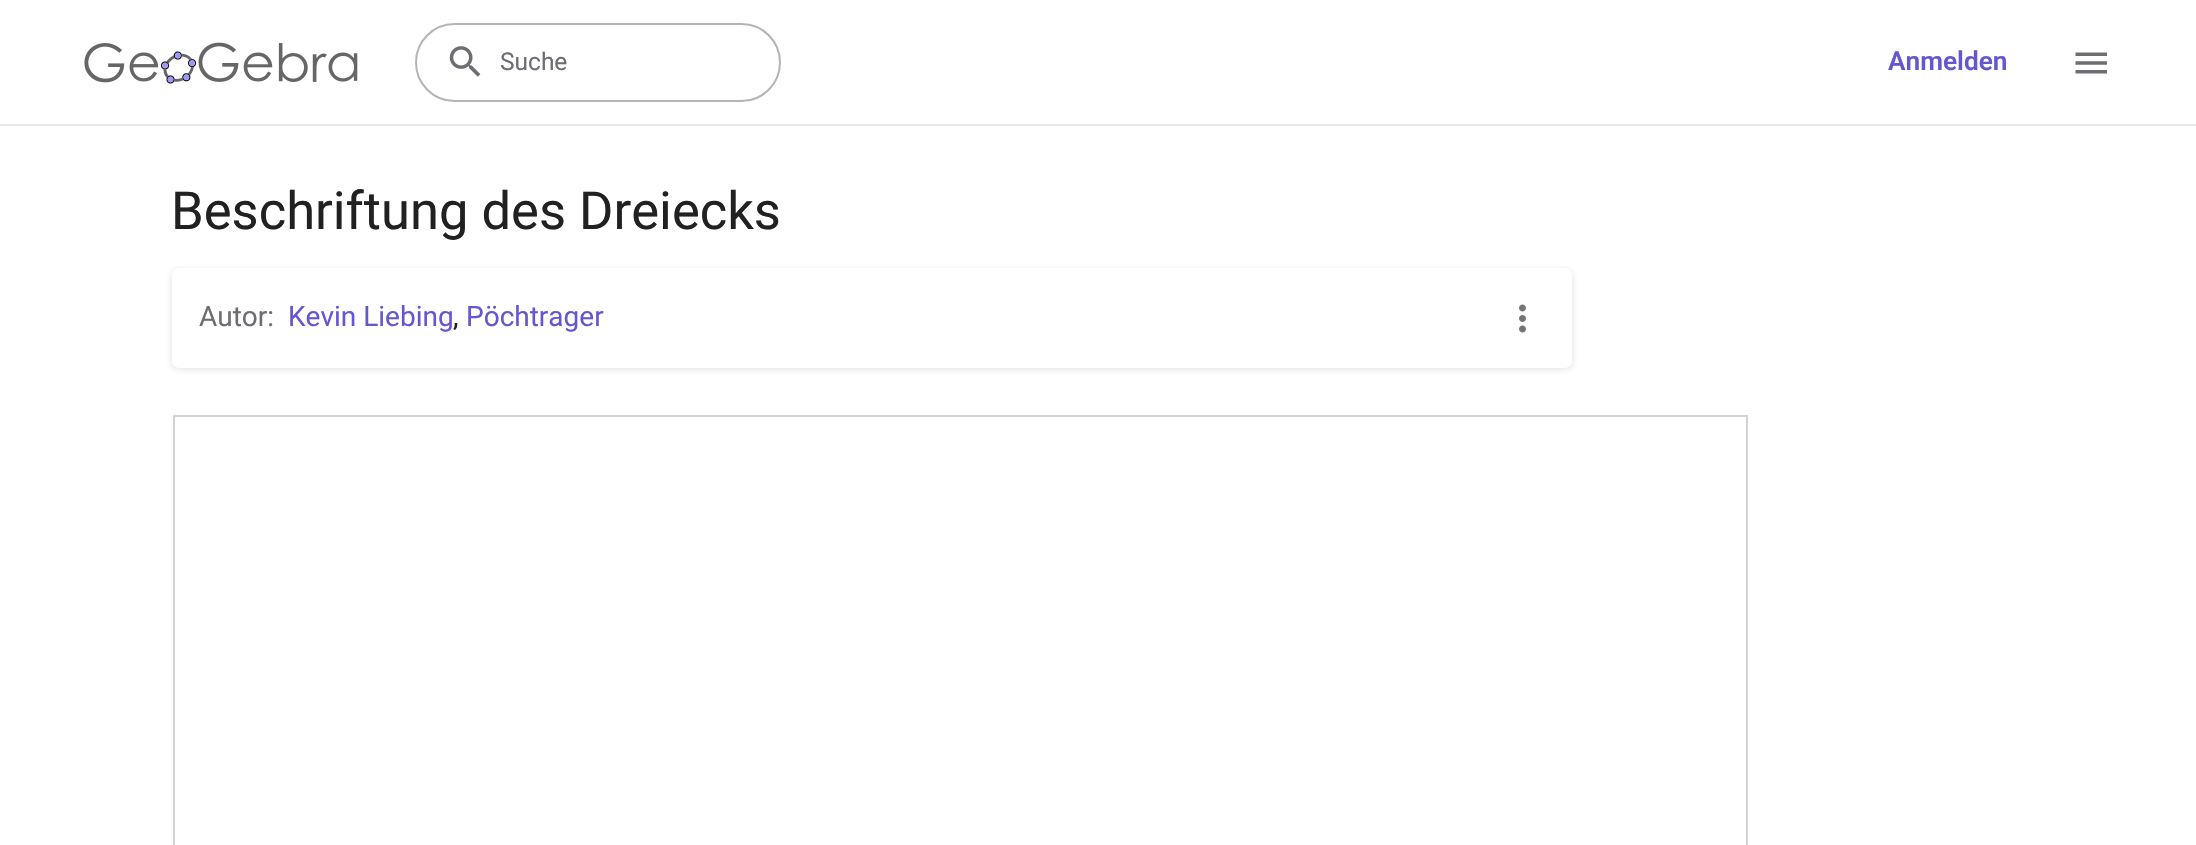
#include "include/core/SkBlurTypes.h"
#include "include/core/SkCanvas.h"
#include "include/core/SkData.h"
#include "include/core/SkFont.h"
#include "include/core/SkFontMgr.h"
#include "include/core/SkImage.h"
#include "include/core/SkMaskFilter.h"
#include "include/core/SkPaint.h"
#include "include/core/SkPathBuilder.h"
#include "include/core/SkTextBlob.h"
#include "include/effects/SkDashPathEffect.h"
#include "include/effects/SkGradientShader.h"
#include "include/utils/SkParsePath.h"

extern sk_sp<SkFontMgr> fontMgr;

static SkFont font(const char* family, int weight, float size, bool italic = false) {
    SkFontStyle style(weight, SkFontStyle::kNormal_Width,
        italic ? SkFontStyle::kItalic_Slant : SkFontStyle::kUpright_Slant);
    SkFont result(fontMgr->matchFamilyStyle(family, style), size);
    result.setSubpixel(true);
    return result;
}

static void drawLabel(SkCanvas* canvas, const char* s, float x, float y, const SkFont& font, SkColor color) {
    SkPaint ink(SkColor4f::FromColor(color));
    ink.setAntiAlias(true);
    canvas->drawString(s, x, y, font, ink);
}

static void fillRect(SkCanvas* canvas, float x, float y, float w, float h, SkColor color) {
    SkPaint ink(SkColor4f::FromColor(color));
    ink.setAntiAlias(true);
    canvas->drawRect(SkRect::MakeXYWH(x, y, w, h), ink);
}

static void fillRRect(SkCanvas* canvas, float x, float y, float w, float h, float radius, SkColor color) {
    SkPaint ink(SkColor4f::FromColor(color));
    ink.setAntiAlias(true);
    canvas->drawRoundRect(SkRect::MakeXYWH(x, y, w, h), radius, radius, ink);
}

static void drawPhoto(SkCanvas* canvas, const char* path, float x, float y, float w, float h) {
    auto image = SkImages::DeferredFromEncodedData(SkData::MakeFromFileName(path));
    canvas->drawImageRect(image, SkRect::MakeXYWH(x, y, w, h), SkSamplingOptions());
}

void draw(SkCanvas* canvas) {
    SkPaint paint;
    paint.setAntiAlias(true);
    canvas->clear(0xFFFFFFFF);
    fillRect(canvas, 0, 124, 2196, 2, 0xFFE6E6EB);
    drawPhoto(canvas, "assets/img1.png", 84, 42, 274, 42);
    paint.setStroke(true);
    paint.setStrokeWidth(2);
    paint.setColor(0xFFB4B3BA);
    canvas->drawRoundRect(SkRect::MakeXYWH(416, 24, 364, 77), 38.5f, 38.5f, paint);
    drawPhoto(canvas, "assets/img2.png", 449, 46, 32, 31);
    SkFont font1 = font("Roboto", 400, 24.5f);
    drawLabel(canvas, "Suche", 500, 70, font1, 0xFF6E6D73);
    SkFont font2 = font("Roboto", 600, 26.25f);
    drawLabel(canvas, "Anmelden", 1888, 70, font2, 0xFF6557D2);
    drawPhoto(canvas, "assets/img3.png", 2075, 52, 32, 22);
    SkFont font3 = font("Roboto", 400, 52.5f);
    drawLabel(canvas, "Beschriftung des Dreiecks", 171, 229, font3, 0xFF212121);
    paint.setStroke(false);
    paint.setColor(0x241C1C1F);
    paint.setMaskFilter(SkMaskFilter::MakeBlur(kNormal_SkBlurStyle, 3.5f));
    canvas->drawRoundRect(SkRect::MakeXYWH(172, 270, 1400, 99), 7, 7, paint);
    paint.setMaskFilter(nullptr);
    fillRRect(canvas, 172, 268, 1400, 100, 7, 0xFFFFFFFF);
    SkFont font4 = font("Roboto", 400, 28);
    drawLabel(canvas, "Autor:", 199, 326, font4, 0xFF6E6D73);
    drawLabel(canvas, "Kevin Liebing", 288, 326, font4, 0xFF6557D2);
    drawLabel(canvas, ",", 453, 326, font4, 0xFF212121);
    drawLabel(canvas, "Pöchtrager", 466, 326, font4, 0xFF6557D2);
    drawPhoto(canvas, "assets/img4.png", 1519, 304, 7, 29);
    paint.setStroke(true);
    paint.setColor(0xFFD3D3D3);
    canvas->drawRect(SkRect::MakeXYWH(174, 416, 1573, 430), paint);
}
